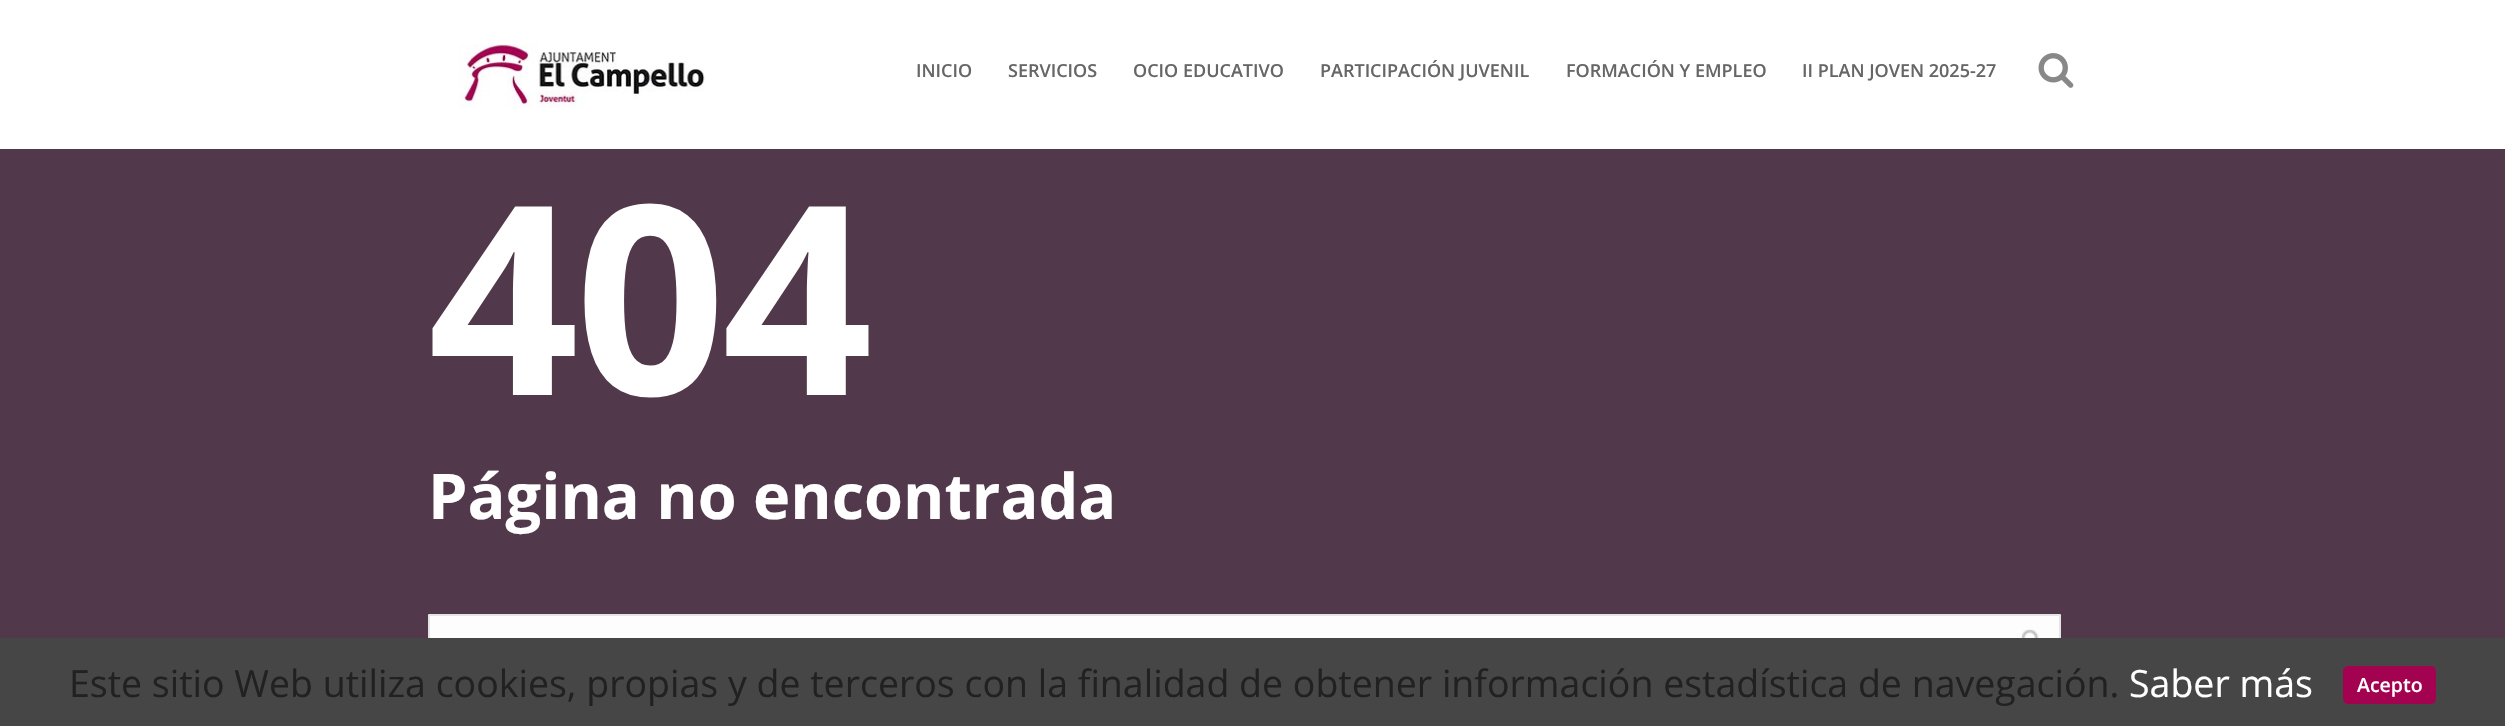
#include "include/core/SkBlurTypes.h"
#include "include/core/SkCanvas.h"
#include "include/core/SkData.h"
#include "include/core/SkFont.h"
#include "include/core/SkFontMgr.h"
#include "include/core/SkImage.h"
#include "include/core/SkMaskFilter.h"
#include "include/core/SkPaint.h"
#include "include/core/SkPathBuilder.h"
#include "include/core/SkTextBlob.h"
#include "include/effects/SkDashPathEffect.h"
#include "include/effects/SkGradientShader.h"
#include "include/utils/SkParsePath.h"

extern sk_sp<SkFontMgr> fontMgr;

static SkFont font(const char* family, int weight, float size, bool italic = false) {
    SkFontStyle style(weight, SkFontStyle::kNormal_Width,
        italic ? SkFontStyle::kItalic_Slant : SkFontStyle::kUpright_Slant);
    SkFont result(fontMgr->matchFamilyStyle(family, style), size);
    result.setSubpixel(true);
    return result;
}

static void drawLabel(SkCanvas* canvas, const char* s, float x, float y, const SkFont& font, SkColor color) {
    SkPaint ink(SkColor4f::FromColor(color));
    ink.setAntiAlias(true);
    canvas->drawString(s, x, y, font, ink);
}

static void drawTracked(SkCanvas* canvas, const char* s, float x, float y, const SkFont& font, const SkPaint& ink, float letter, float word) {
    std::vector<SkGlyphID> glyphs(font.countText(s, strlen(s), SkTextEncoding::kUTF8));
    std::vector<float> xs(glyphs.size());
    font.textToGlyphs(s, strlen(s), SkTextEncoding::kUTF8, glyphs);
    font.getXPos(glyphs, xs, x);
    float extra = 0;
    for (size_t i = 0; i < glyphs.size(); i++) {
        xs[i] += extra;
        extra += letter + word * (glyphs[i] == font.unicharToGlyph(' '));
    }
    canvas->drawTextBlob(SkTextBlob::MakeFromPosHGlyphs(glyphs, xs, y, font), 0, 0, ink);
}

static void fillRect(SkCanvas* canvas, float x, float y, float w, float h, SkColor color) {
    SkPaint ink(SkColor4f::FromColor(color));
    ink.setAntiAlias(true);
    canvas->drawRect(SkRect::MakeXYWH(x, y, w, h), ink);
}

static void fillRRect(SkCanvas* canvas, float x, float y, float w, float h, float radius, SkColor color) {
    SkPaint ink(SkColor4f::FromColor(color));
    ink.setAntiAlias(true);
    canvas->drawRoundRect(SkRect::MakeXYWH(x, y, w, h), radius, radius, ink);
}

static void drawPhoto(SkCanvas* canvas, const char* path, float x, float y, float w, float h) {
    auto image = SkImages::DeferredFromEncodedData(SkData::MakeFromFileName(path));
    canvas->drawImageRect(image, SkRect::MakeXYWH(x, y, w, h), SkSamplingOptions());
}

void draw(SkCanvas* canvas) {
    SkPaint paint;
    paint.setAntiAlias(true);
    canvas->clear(0xFFFFFFFF);
    drawPhoto(canvas, "assets/img1.png", 459, 44, 246, 64);
    SkFont font1 = font("Open Sans", 600, 18);
    drawLabel(canvas, "INICIO", 916, 77, font1, 0xFF666666);
    drawLabel(canvas, "SERVICIOS", 1008, 77, font1, 0xFF666666);
    drawLabel(canvas, "OCIO EDUCATIVO", 1133, 77, font1, 0xFF666666);
    drawLabel(canvas, "PARTICIPACIÓN JUVENIL", 1320, 77, font1, 0xFF666666);
    drawLabel(canvas, "FORMACIÓN Y EMPLEO", 1566, 77, font1, 0xFF666666);
    drawLabel(canvas, "II PLAN JOVEN 2025-27", 1802, 77, font1, 0xFF666666);
    drawPhoto(canvas, "assets/img2.png", 2038, 53, 36, 35);
    fillRect(canvas, 0, 149, 2505, 489, 0xFF52384B);
    SkFont font2 = font("Open Sans", 700, 264);
    paint.setColor(0xFFFFFFFF);
    drawTracked(canvas, "404", 428, 395, font2, paint, -4, 0);
    SkFont font3 = font("Open Sans", 700, 63);
    drawLabel(canvas, "Página no encontrada", 428, 519, font3, 0xFFFFFFFF);
    fillRRect(canvas, 428, 614, 1633, 54, 1.5f, 0xFFFDFDFD);
    drawPhoto(canvas, "assets/img3.png", 2021, 629, 18, 9);
    paint.setStroke(true);
    paint.setStrokeWidth(2);
    paint.setColor(0xFFE5E5E5);
    canvas->drawRoundRect(SkRect::MakeXYWH(429, 615, 1631, 52), 0.5f, 0.5f, paint);
    fillRect(canvas, 0, 638, 2505, 88, 0xFF464646);
    SkFont font4 = font("Open Sans", 400, 37.5f);
    drawLabel(canvas, "Este sitio Web utiliza cookies, propias y de terceros con la finalidad de obtener información estadística de navegación.", 69, 697, font4, 0xFF212121);
    drawLabel(canvas, "Saber más", 2129, 697, font4, 0xFFFFFFFF);
    fillRRect(canvas, 2343, 666, 93, 38, 5, 0xFFA30251);
    SkFont font5 = font("Open Sans", 600, 19.5f);
    drawLabel(canvas, "Acepto", 2357, 692, font5, 0xFFFFFFFF);
}
